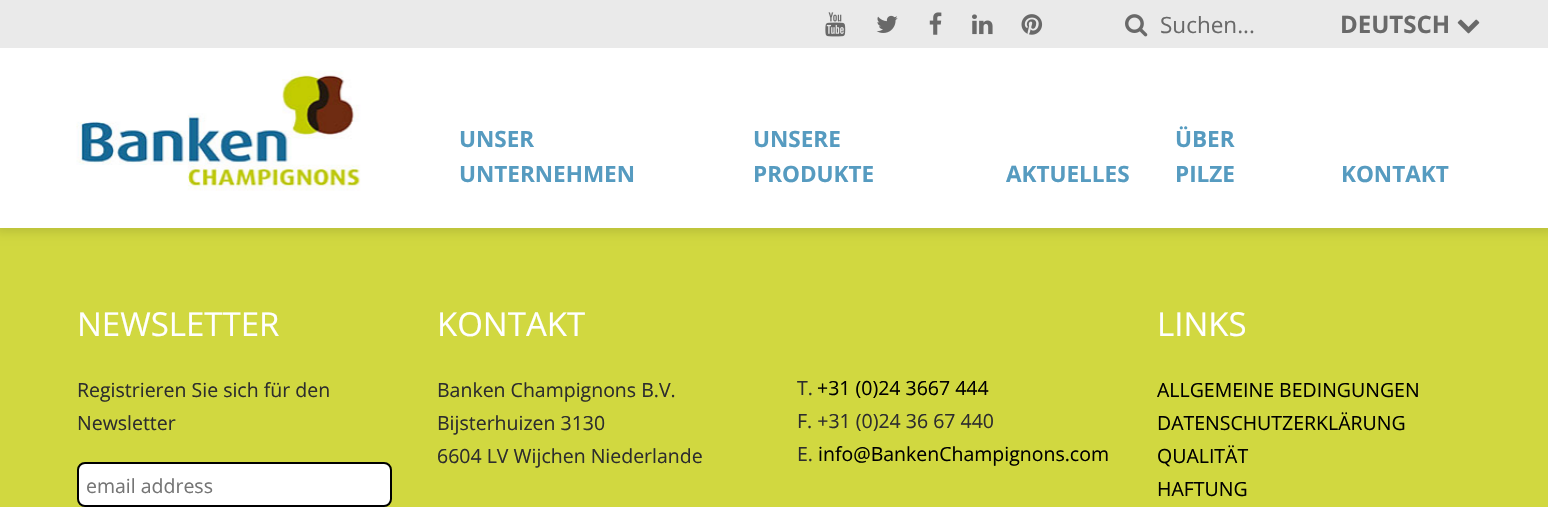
#include "include/core/SkBlurTypes.h"
#include "include/core/SkCanvas.h"
#include "include/core/SkData.h"
#include "include/core/SkFont.h"
#include "include/core/SkFontMgr.h"
#include "include/core/SkImage.h"
#include "include/core/SkMaskFilter.h"
#include "include/core/SkPaint.h"
#include "include/core/SkPathBuilder.h"
#include "include/core/SkTextBlob.h"
#include "include/effects/SkDashPathEffect.h"
#include "include/effects/SkGradientShader.h"
#include "include/utils/SkParsePath.h"

extern sk_sp<SkFontMgr> fontMgr;

static SkFont font(const char* family, int weight, float size, bool italic = false) {
    SkFontStyle style(weight, SkFontStyle::kNormal_Width,
        italic ? SkFontStyle::kItalic_Slant : SkFontStyle::kUpright_Slant);
    SkFont result(fontMgr->matchFamilyStyle(family, style), size);
    result.setSubpixel(true);
    return result;
}

static void drawLabel(SkCanvas* canvas, const char* s, float x, float y, const SkFont& font, SkColor color) {
    SkPaint ink(SkColor4f::FromColor(color));
    ink.setAntiAlias(true);
    canvas->drawString(s, x, y, font, ink);
}

static void fillRect(SkCanvas* canvas, float x, float y, float w, float h, SkColor color) {
    SkPaint ink(SkColor4f::FromColor(color));
    ink.setAntiAlias(true);
    canvas->drawRect(SkRect::MakeXYWH(x, y, w, h), ink);
}

static void drawPhoto(SkCanvas* canvas, const char* path, float x, float y, float w, float h) {
    auto image = SkImages::DeferredFromEncodedData(SkData::MakeFromFileName(path));
    canvas->drawImageRect(image, SkRect::MakeXYWH(x, y, w, h), SkSamplingOptions());
}

void draw(SkCanvas* canvas) {
    SkPaint paint;
    paint.setAntiAlias(true);
    canvas->clear(0xFFD1D840);
    paint.setColor(0x1A000000);
    paint.setMaskFilter(SkMaskFilter::MakeBlur(kNormal_SkBlurStyle, 4.5f));
    canvas->drawRect(SkRect::MakeXYWH(-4, -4, 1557, 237), paint);
    paint.setMaskFilter(nullptr);
    fillRect(canvas, 0, 48, 1548, 180, 0xFFFFFFFF);
    fillRect(canvas, 0, 0, 1548, 48, 0xFFEAEAEA);
    drawPhoto(canvas, "assets/img1.png", 825, 12, 21, 25);
    drawPhoto(canvas, "assets/img2.png", 876, 15, 22, 18);
    drawPhoto(canvas, "assets/img3.png", 929, 12, 13, 23);
    drawPhoto(canvas, "assets/img4.png", 972, 14, 21, 21);
    drawPhoto(canvas, "assets/img5.png", 1021, 14, 22, 21);
    drawPhoto(canvas, "assets/img6.png", 1125, 14, 23, 23);
    SkFont font1 = font("Open Sans", 400, 22.5f);
    drawLabel(canvas, "Suchen...", 1160, 33, font1, 0xFF696969);
    SkFont font2 = font("Open Sans", 700, 24);
    drawLabel(canvas, "DEUTSCH", 1340, 33, font2, 0xFF696969);
    drawPhoto(canvas, "assets/img7.png", 1457, 19, 23, 15);
    drawPhoto(canvas, "assets/img8.png", 76, 70, 285, 121);
    SkFont font3 = font("Open Sans", 700, 22.5f);
    drawLabel(canvas, "UNSER", 459, 147, font3, 0xFF569BC0);
    drawLabel(canvas, "UNTERNEHMEN", 459, 182, font3, 0xFF569BC0);
    drawLabel(canvas, "UNSERE", 753, 147, font3, 0xFF569BC0);
    drawLabel(canvas, "PRODUKTE", 753, 182, font3, 0xFF569BC0);
    drawLabel(canvas, "AKTUELLES", 1006, 182, font3, 0xFF569BC0);
    drawLabel(canvas, "ÜBER", 1175, 147, font3, 0xFF569BC0);
    drawLabel(canvas, "PILZE", 1175, 182, font3, 0xFF569BC0);
    drawLabel(canvas, "KONTAKT", 1341, 182, font3, 0xFF569BC0);
    SkFont font4 = font("Open Sans", 400, 33);
    drawLabel(canvas, "NEWSLETTER", 77, 336, font4, 0xFFFFFFFF);
    SkFont font5 = font("Open Sans", 400, 19.5f);
    drawLabel(canvas, "Registrieren Sie sich für den", 77, 397, font5, 0xFF2D2D2D);
    drawLabel(canvas, "Newsletter", 77, 430, font5, 0xFF2D2D2D);
    paint.setColor(0xFFFFFFFF);
    canvas->drawRoundRect(SkRect::MakeXYWH(78, 463, 313, 43), 7, 7, paint);
    paint.setStroke(true);
    paint.setStrokeWidth(2);
    paint.setColor(0xFF000000);
    canvas->drawRoundRect(SkRect::MakeXYWH(78, 463, 313, 43), 7, 7, paint);
    drawLabel(canvas, "email address", 86, 493, font5, 0xFF757575);
    drawLabel(canvas, "KONTAKT", 437, 336, font4, 0xFFFFFFFF);
    drawLabel(canvas, "Banken Champignons B.V.", 437, 397, font5, 0xFF2D2D2D);
    drawLabel(canvas, "Bijsterhuizen 3130", 437, 430, font5, 0xFF2D2D2D);
    drawLabel(canvas, "6604 LV Wijchen Niederlande", 437, 463, font5, 0xFF2D2D2D);
    drawLabel(canvas, "T.", 797, 395, font5, 0xFF2D2D2D);
    drawLabel(canvas, "+31 (0)24 3667 444", 817, 395, font5, 0xFF000000);
    drawLabel(canvas, "F. +31 (0)24 36 67 440", 797, 428, font5, 0xFF2D2D2D);
    drawLabel(canvas, "E.", 797, 461, font5, 0xFF2D2D2D);
    drawLabel(canvas, "info@BankenChampignons.com", 818, 461, font5, 0xFF000000);
    drawLabel(canvas, "LINKS", 1157, 336, font4, 0xFFFFFFFF);
    drawLabel(canvas, "ALLGEMEINE BEDINGUNGEN", 1157, 397, font5, 0xFF000000);
    drawLabel(canvas, "DATENSCHUTZERKLÄRUNG", 1157, 430, font5, 0xFF000000);
    drawLabel(canvas, "QUALITÄT", 1157, 463, font5, 0xFF000000);
    drawLabel(canvas, "HAFTUNG", 1157, 496, font5, 0xFF000000);
}
